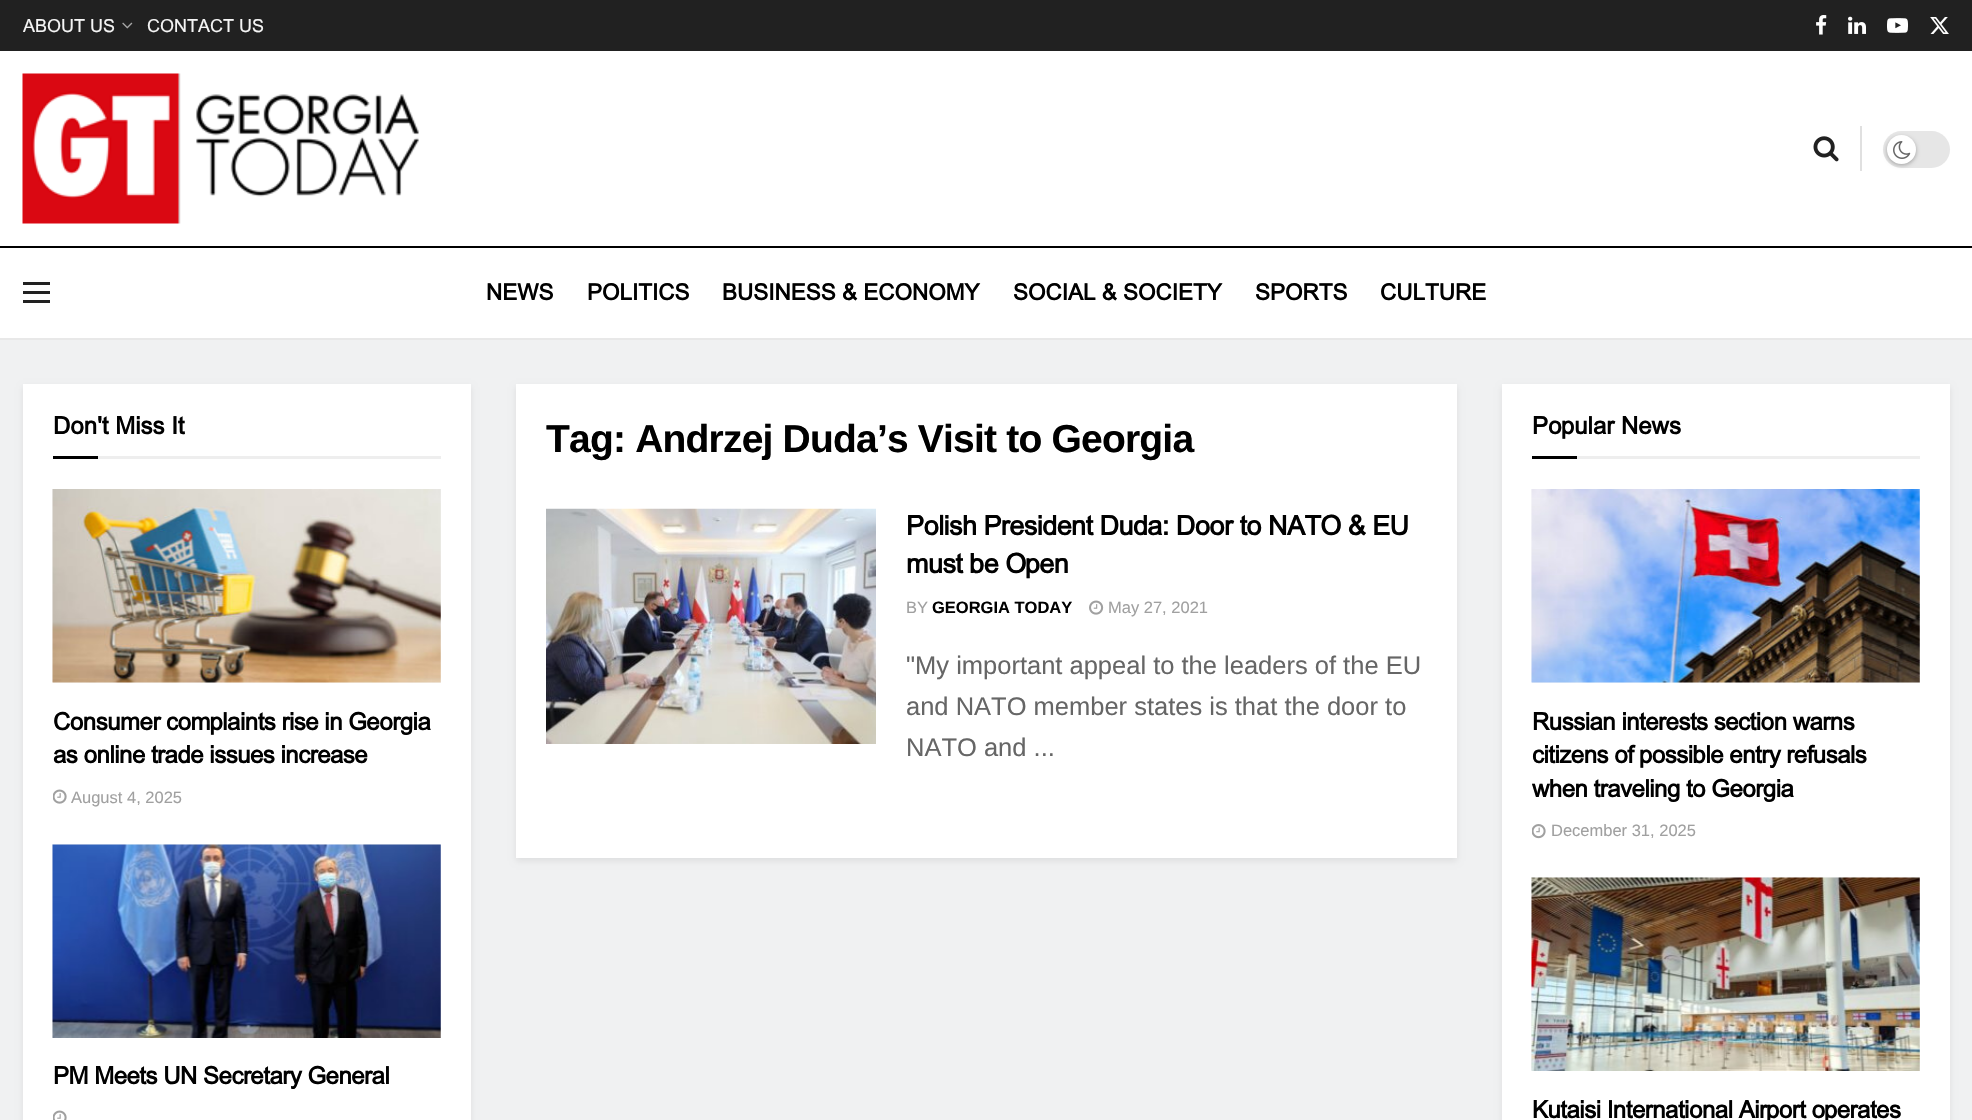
#include "include/core/SkBlurTypes.h"
#include "include/core/SkCanvas.h"
#include "include/core/SkData.h"
#include "include/core/SkFont.h"
#include "include/core/SkFontMgr.h"
#include "include/core/SkImage.h"
#include "include/core/SkMaskFilter.h"
#include "include/core/SkPaint.h"
#include "include/core/SkPathBuilder.h"
#include "include/core/SkTextBlob.h"
#include "include/effects/SkDashPathEffect.h"
#include "include/effects/SkGradientShader.h"
#include "include/utils/SkParsePath.h"

extern sk_sp<SkFontMgr> fontMgr;

static SkFont font(const char* family, int weight, float size, bool italic = false) {
    SkFontStyle style(weight, SkFontStyle::kNormal_Width,
        italic ? SkFontStyle::kItalic_Slant : SkFontStyle::kUpright_Slant);
    SkFont result(fontMgr->matchFamilyStyle(family, style), size);
    result.setSubpixel(true);
    return result;
}

static void drawLabel(SkCanvas* canvas, const char* s, float x, float y, const SkFont& font, SkColor color) {
    SkPaint ink(SkColor4f::FromColor(color));
    ink.setAntiAlias(true);
    canvas->drawString(s, x, y, font, ink);
}

static void drawTracked(SkCanvas* canvas, const char* s, float x, float y, const SkFont& font, const SkPaint& ink, float letter, float word) {
    std::vector<SkGlyphID> glyphs(font.countText(s, strlen(s), SkTextEncoding::kUTF8));
    std::vector<float> xs(glyphs.size());
    font.textToGlyphs(s, strlen(s), SkTextEncoding::kUTF8, glyphs);
    font.getXPos(glyphs, xs, x);
    float extra = 0;
    for (size_t i = 0; i < glyphs.size(); i++) {
        xs[i] += extra;
        extra += letter + word * (glyphs[i] == font.unicharToGlyph(' '));
    }
    canvas->drawTextBlob(SkTextBlob::MakeFromPosHGlyphs(glyphs, xs, y, font), 0, 0, ink);
}

static void fillRect(SkCanvas* canvas, float x, float y, float w, float h, SkColor color) {
    SkPaint ink(SkColor4f::FromColor(color));
    ink.setAntiAlias(true);
    canvas->drawRect(SkRect::MakeXYWH(x, y, w, h), ink);
}

static void fillRRect(SkCanvas* canvas, float x, float y, float w, float h, float radius, SkColor color) {
    SkPaint ink(SkColor4f::FromColor(color));
    ink.setAntiAlias(true);
    canvas->drawRoundRect(SkRect::MakeXYWH(x, y, w, h), radius, radius, ink);
}

static void drawPhoto(SkCanvas* canvas, const char* path, float x, float y, float w, float h) {
    auto image = SkImages::DeferredFromEncodedData(SkData::MakeFromFileName(path));
    canvas->drawImageRect(image, SkRect::MakeXYWH(x, y, w, h), SkSamplingOptions());
}

void draw(SkCanvas* canvas) {
    SkPaint paint;
    paint.setAntiAlias(true);
    canvas->clear(0xFFFFFFFF);
    fillRect(canvas, 0, 0, 1972, 51, 0xFF212121);
    SkFont font1 = font("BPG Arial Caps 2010", 400, 18);
    drawLabel(canvas, "ABOUT US", 23, 32, font1, 0xFFF5F5F5);
    drawPhoto(canvas, "assets/img1.png", 122, 22, 11, 7);
    drawLabel(canvas, "CONTACT US", 147, 32, font1, 0xFFF5F5F5);
    drawPhoto(canvas, "assets/img2.png", 1816, 15, 11, 20);
    drawPhoto(canvas, "assets/img3.png", 1848, 16, 18, 18);
    drawPhoto(canvas, "assets/img4.png", 1887, 18, 21, 15);
    drawPhoto(canvas, "assets/img5.png", 1930, 17, 19, 17);
    drawPhoto(canvas, "assets/img6.png", 22, 73, 397, 151);
    drawPhoto(canvas, "assets/img7.png", 1813, 136, 26, 26);
    fillRect(canvas, 1860, 126, 2, 45, 0xFFE0E0E0);
    fillRRect(canvas, 1883, 131, 67, 37, 18.5f, 0xFFE6E6E6);
    paint.setColor(0x4D000000);
    paint.setMaskFilter(SkMaskFilter::MakeBlur(kNormal_SkBlurStyle, 2));
    canvas->drawRoundRect(SkRect::MakeXYWH(1887, 137, 29, 28), 14, 14, paint);
    paint.setMaskFilter(nullptr);
    paint.setColor(0xFFFFFFFF);
    canvas->drawCircle(1901.5f, 149.5f, 14.5f, paint);
    drawPhoto(canvas, "assets/img8.png", 1893, 141, 18, 18);
    fillRect(canvas, 0, 246, 1972, 2, 0xFF000000);
    fillRect(canvas, 0, 338, 1972, 2, 0xFFE8E8E8);
    fillRect(canvas, 23, 282, 27, 3, 0xFF212121);
    fillRect(canvas, 23, 291, 27, 3, 0xFF212121);
    fillRect(canvas, 23, 300, 27, 3, 0xFF212121);
    SkFont font2 = font("BPG Arial Caps 2010", 700, 22.5f);
    drawLabel(canvas, "NEWS", 486, 300, font2, 0xFF000000);
    drawLabel(canvas, "POLITICS", 587, 300, font2, 0xFF000000);
    drawLabel(canvas, "BUSINESS & ECONOMY", 722, 300, font2, 0xFF000000);
    drawLabel(canvas, "SOCIAL & SOCIETY", 1013, 300, font2, 0xFF000000);
    drawLabel(canvas, "SPORTS", 1255, 300, font2, 0xFF000000);
    drawLabel(canvas, "CULTURE", 1380, 300, font2, 0xFF000000);
    fillRect(canvas, 0, 340, 1972, 780, 0xFFF0F1F2);
    paint.setColor(0x14000000);
    paint.setMaskFilter(SkMaskFilter::MakeBlur(kNormal_SkBlurStyle, 3));
    canvas->drawRect(SkRect::MakeXYWH(23, 387, 448, 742), paint);
    paint.setMaskFilter(nullptr);
    fillRect(canvas, 23, 384, 448, 736, 0xFFFFFFFF);
    fillRect(canvas, 98, 456, 343, 3, 0xFFEEEEEE);
    SkFont font3 = font("BPG Arial Caps 2010", 700, 24);
    drawLabel(canvas, "Don't Miss It", 53, 434, font3, 0xFF000000);
    fillRect(canvas, 53, 456, 45, 3, 0xFF000000);
    fillRect(canvas, 53, 489, 388, 194, 0xFFF7F7F7);
    fillRect(canvas, 52, 489, 1, 193, 0xFFFBFBFB);
    drawPhoto(canvas, "assets/img9.png", 52, 489, 389, 194);
    paint.setColor(0xFF000000);
    drawTracked(canvas, "Consumer complaints rise in Georgia", 53, 730, font3, paint, -0.5f, 0);
    drawTracked(canvas, "as online trade issues increase", 53, 763, font3, paint, -0.5f, 0);
    drawPhoto(canvas, "assets/img10.png", 53, 789, 14, 15);
    SkFont font4 = font("Liberation Sans", 400, 16.5f);
    drawLabel(canvas, "August 4, 2025", 71, 803, font4, 0xFFA0A0A0);
    fillRect(canvas, 52, 844, 388, 193, 0xFFF7F7F7);
    drawPhoto(canvas, "assets/img11.png", 52, 844, 389, 194);
    drawTracked(canvas, "PM Meets UN Secretary General", 53, 1084, font3, paint, -0.5f, 0);
    drawPhoto(canvas, "assets/img12.png", 53, 1110, 14, 10);
    paint.setColor(0x14000000);
    paint.setMaskFilter(SkMaskFilter::MakeBlur(kNormal_SkBlurStyle, 3));
    canvas->drawRect(SkRect::MakeXYWH(516, 387, 941, 474), paint);
    paint.setMaskFilter(nullptr);
    fillRect(canvas, 516, 384, 941, 474, 0xFFFFFFFF);
    SkFont font5 = font("Liberation Sans", 700, 39);
    paint.setColor(0xFF000000);
    drawTracked(canvas, "Tag: Andrzej Duda’s Visit to Georgia", 546, 452, font5, paint, -0.8f, 0);
    drawPhoto(canvas, "assets/img13.png", 546, 508, 330, 236);
    SkFont font6 = font("BPG Arial Caps 2010", 700, 27);
    drawTracked(canvas, "Polish President Duda: Door to NATO & EU", 906, 535, font6, paint, -0.55f, 0);
    drawTracked(canvas, "must be Open", 906, 573, font6, paint, -0.55f, 0);
    drawLabel(canvas, "BY", 906, 613, font4, 0xFFA0A0A0);
    SkFont font7 = font("Liberation Sans", 700, 16.5f);
    drawLabel(canvas, "GEORGIA TODAY", 932, 613, font7, 0xFF000000);
    drawPhoto(canvas, "assets/img14.png", 1089, 600, 15, 15);
    drawLabel(canvas, "May 27, 2021", 1108, 613, font4, 0xFFA0A0A0);
    SkFont font8 = font("Liberation Sans", 400, 25.5f);
    drawLabel(canvas, "\"My important appeal to the leaders of the EU", 906, 674, font8, 0xFF666666);
    drawLabel(canvas, "and NATO member states is that the door to", 906, 715, font8, 0xFF666666);
    drawLabel(canvas, "NATO and ...", 906, 756, font8, 0xFF666666);
    paint.setColor(0x14000000);
    paint.setMaskFilter(SkMaskFilter::MakeBlur(kNormal_SkBlurStyle, 3));
    canvas->drawRect(SkRect::MakeXYWH(1502, 387, 448, 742), paint);
    paint.setMaskFilter(nullptr);
    fillRect(canvas, 1502, 384, 448, 736, 0xFFFFFFFF);
    fillRect(canvas, 1577, 456, 343, 3, 0xFFEEEEEE);
    drawLabel(canvas, "Popular News", 1532, 434, font3, 0xFF000000);
    fillRect(canvas, 1532, 456, 45, 3, 0xFF000000);
    fillRect(canvas, 1532, 489, 388, 194, 0xFFF7F7F7);
    fillRect(canvas, 1531, 489, 1, 193, 0xFFFBFBFB);
    drawPhoto(canvas, "assets/img15.png", 1531, 489, 389, 194);
    paint.setColor(0xFF000000);
    drawTracked(canvas, "Russian interests section warns", 1532, 730, font3, paint, -0.5f, 0);
    drawTracked(canvas, "citizens of possible entry refusals", 1532, 763, font3, paint, -0.5f, 0);
    drawTracked(canvas, "when traveling to Georgia", 1532, 797, font3, paint, -0.5f, 0);
    drawPhoto(canvas, "assets/img16.png", 1532, 824, 14, 15);
    drawLabel(canvas, "December 31, 2025", 1551, 836, font4, 0xFFA0A0A0);
    fillRect(canvas, 1531, 877, 388, 193, 0xFFF7F7F7);
    drawPhoto(canvas, "assets/img17.png", 1531, 877, 389, 194);
    drawTracked(canvas, "Kutaisi International Airport operates", 1532, 1118, font3, paint, -0.5f, 0);
}
